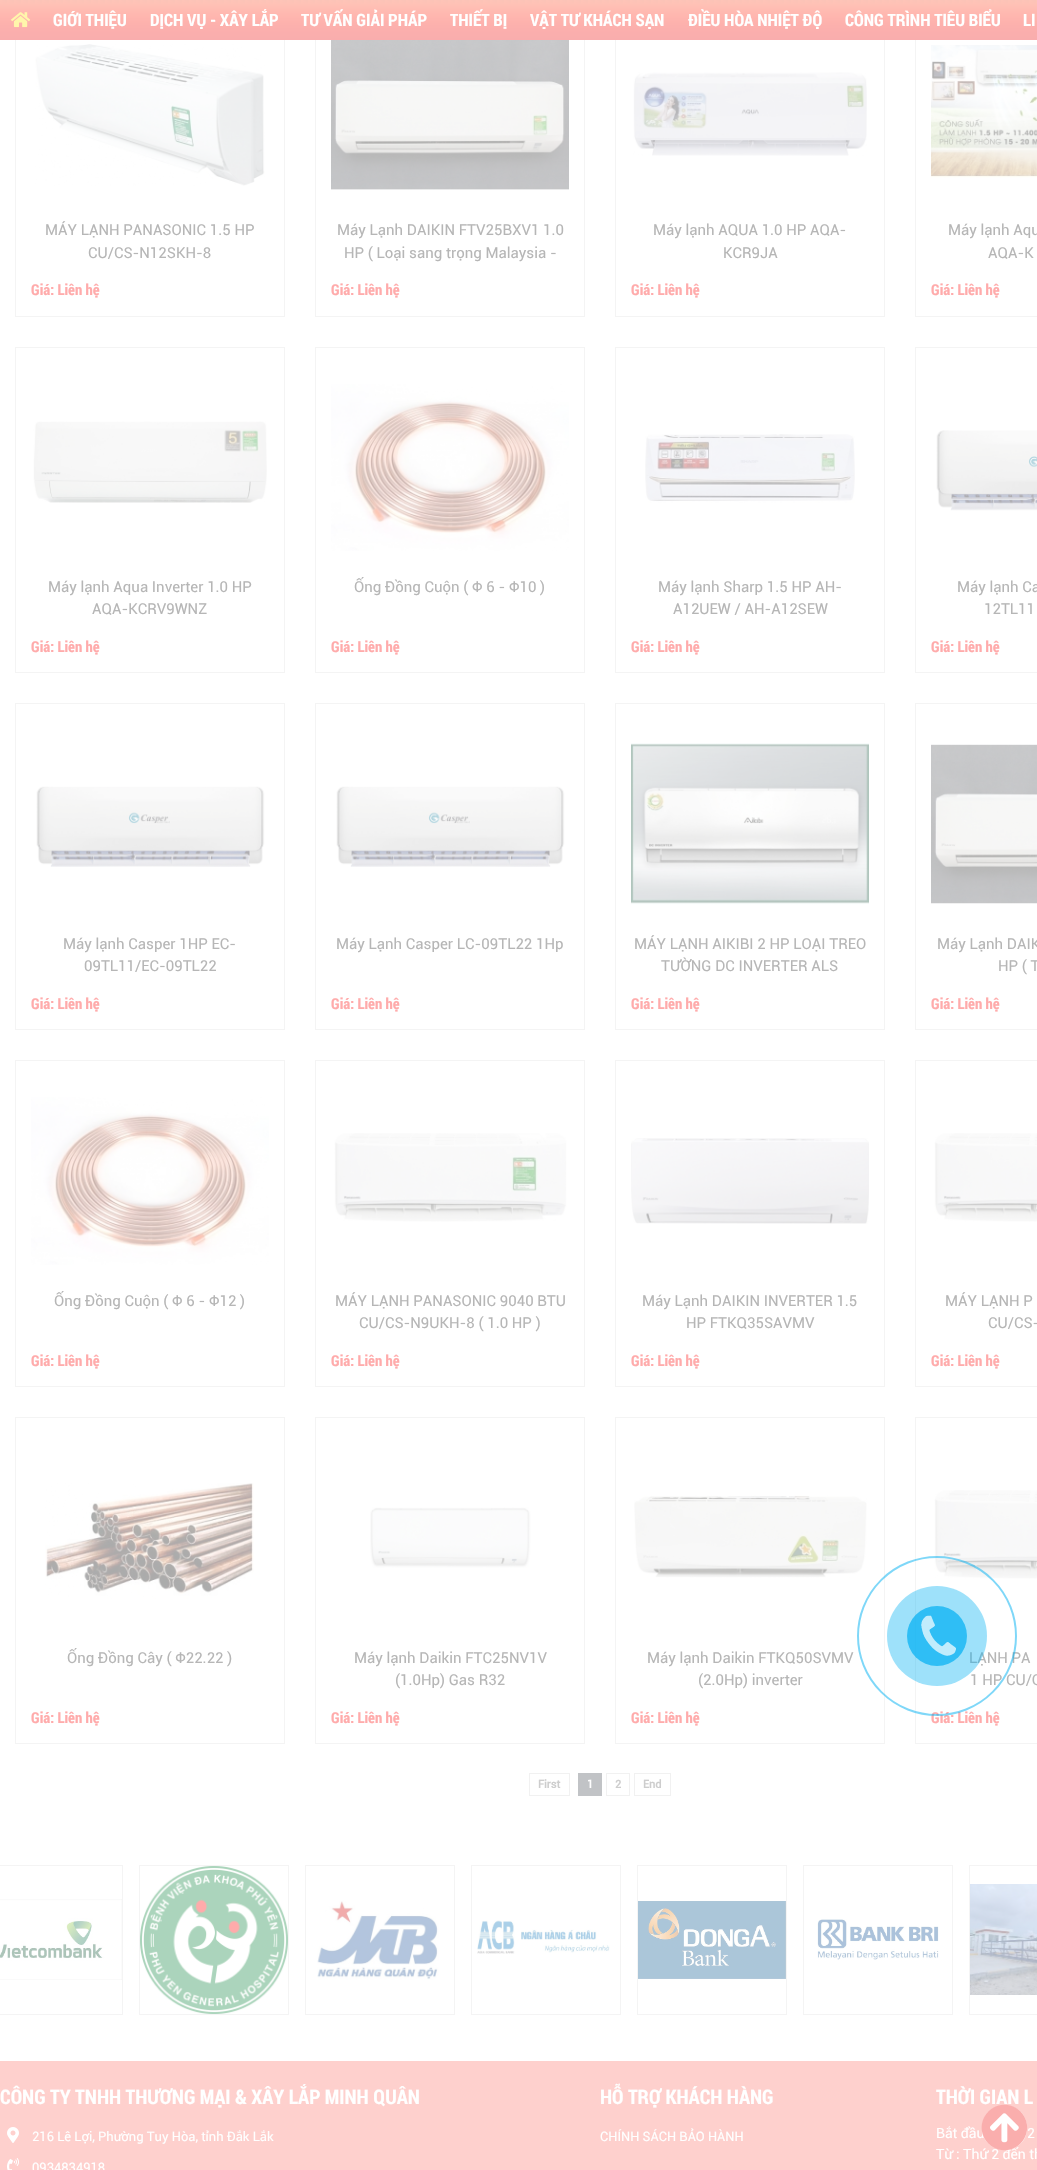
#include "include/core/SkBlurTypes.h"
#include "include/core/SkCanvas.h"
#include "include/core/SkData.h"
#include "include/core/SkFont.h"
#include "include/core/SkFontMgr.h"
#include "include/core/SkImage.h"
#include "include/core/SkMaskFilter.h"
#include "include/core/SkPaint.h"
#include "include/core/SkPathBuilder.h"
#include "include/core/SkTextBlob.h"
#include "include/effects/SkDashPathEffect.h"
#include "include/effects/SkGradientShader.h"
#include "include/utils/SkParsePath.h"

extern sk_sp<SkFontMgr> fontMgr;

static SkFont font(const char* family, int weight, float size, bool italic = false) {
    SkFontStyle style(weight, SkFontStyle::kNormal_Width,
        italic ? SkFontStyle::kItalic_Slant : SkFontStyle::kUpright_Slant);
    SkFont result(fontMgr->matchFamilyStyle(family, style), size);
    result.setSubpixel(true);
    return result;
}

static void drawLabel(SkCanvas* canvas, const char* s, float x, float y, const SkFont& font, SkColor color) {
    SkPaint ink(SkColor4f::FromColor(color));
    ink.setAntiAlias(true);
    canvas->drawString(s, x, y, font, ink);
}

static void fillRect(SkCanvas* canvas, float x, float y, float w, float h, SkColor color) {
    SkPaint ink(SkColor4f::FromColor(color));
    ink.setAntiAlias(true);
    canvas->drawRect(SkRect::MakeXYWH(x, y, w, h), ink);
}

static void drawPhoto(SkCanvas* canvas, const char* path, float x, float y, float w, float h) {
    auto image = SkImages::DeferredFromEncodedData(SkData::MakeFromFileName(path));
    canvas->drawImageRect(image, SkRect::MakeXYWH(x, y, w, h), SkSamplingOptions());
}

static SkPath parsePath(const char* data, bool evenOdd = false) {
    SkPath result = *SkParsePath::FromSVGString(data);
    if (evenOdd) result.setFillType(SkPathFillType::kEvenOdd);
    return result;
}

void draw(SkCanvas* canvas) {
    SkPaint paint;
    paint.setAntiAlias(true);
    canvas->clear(0xFFFFFFFF);
    paint.setStroke(true);
    paint.setStrokeWidth(1);
    paint.setColor(0xFFF4F4F4);
    canvas->drawRect(SkRect::MakeXYWH(15.5f, -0.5f, 269, 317), paint);
    canvas->drawRect(SkRect::MakeXYWH(315.5f, -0.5f, 269, 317), paint);
    canvas->drawRect(SkRect::MakeXYWH(615.5f, -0.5f, 269, 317), paint);
    canvas->drawRect(SkRect::MakeXYWH(915.5f, -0.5f, 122, 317), paint);
    drawPhoto(canvas, "assets/img1.png", 0, 0, 1037, 40);
    drawPhoto(canvas, "assets/img2.png", 11, 12, 20, 16);
    SkFont font1 = font("Roboto Condensed", 700, 17);
    drawLabel(canvas, "GIỚI THIỆU", 53, 26, font1, 0xFFFFFFFF);
    drawLabel(canvas, "DỊCH VỤ - XÂY LẮP", 150, 26, font1, 0xFFFFFFFF);
    drawLabel(canvas, "TƯ VẤN GIẢI PHÁP", 301, 26, font1, 0xFFFFFFFF);
    drawLabel(canvas, "THIẾT BỊ", 450, 26, font1, 0xFFFFFFFF);
    drawLabel(canvas, "VẬT TƯ KHÁCH SẠN", 530, 26, font1, 0xFFFFFFFF);
    drawLabel(canvas, "ĐIỀU HÒA NHIỆT ĐỘ", 688, 26, font1, 0xFFFFFFFF);
    drawLabel(canvas, "CÔNG TRÌNH TIÊU BIỂU", 845, 26, font1, 0xFFFFFFFF);
    drawLabel(canvas, "LI", 1023, 26, font1, 0xFFFFFFFF);
    drawPhoto(canvas, "assets/img3.png", 35, 44, 230, 142);
    SkFont font2 = font("Roboto", 400, 15);
    drawLabel(canvas, "MÁY LẠNH PANASONIC 1.5 HP", 45, 235, font2, 0xFFB6B6B6);
    drawLabel(canvas, "CU/CS-N12SKH-8", 88, 258, font2, 0xFFB6B6B6);
    SkFont font3 = font("Roboto Condensed", 700, 15);
    drawLabel(canvas, "Giá: Liên hệ", 31, 295, font3, 0xFFFFABAB);
    drawPhoto(canvas, "assets/img4.png", 331, 40, 238, 150);
    drawLabel(canvas, "Máy Lạnh DAIKIN FTV25BXV1 1.0", 337, 235, font2, 0xFFB6B6B6);
    drawLabel(canvas, "HP ( Loại sang trọng Malaysia -", 344, 258, font2, 0xFFB6B6B6);
    drawLabel(canvas, "Giá: Liên hệ", 331, 295, font3, 0xFFFFABAB);
    drawPhoto(canvas, "assets/img5.png", 633, 72, 234, 84);
    drawLabel(canvas, "Máy lạnh AQUA 1.0 HP AQA-", 653, 235, font2, 0xFFB6B6B6);
    drawLabel(canvas, "KCR9JA", 723, 258, font2, 0xFFB6B6B6);
    drawLabel(canvas, "Giá: Liên hệ", 631, 295, font3, 0xFFFFABAB);
    drawPhoto(canvas, "assets/img6.png", 931, 45, 106, 133);
    drawLabel(canvas, "Máy lạnh Aqu", 948, 235, font2, 0xFFB6B6B6);
    drawLabel(canvas, "AQA-K", 988, 258, font2, 0xFFB6B6B6);
    drawLabel(canvas, "Giá: Liên hệ", 931, 295, font3, 0xFFFFABAB);
    canvas->drawRect(SkRect::MakeXYWH(15.5f, 347.5f, 269, 325), paint);
    drawPhoto(canvas, "assets/img7.png", 33, 421, 234, 82);
    drawLabel(canvas, "Máy lạnh Aqua Inverter 1.0 HP", 48, 592, font2, 0xFFB6B6B6);
    drawLabel(canvas, "AQA-KCRV9WNZ", 92, 614, font2, 0xFFB6B6B6);
    drawLabel(canvas, "Giá: Liên hệ", 31, 652, font3, 0xFFFFABAB);
    canvas->drawRect(SkRect::MakeXYWH(315.5f, 347.5f, 269, 325), paint);
    drawPhoto(canvas, "assets/img8.png", 331, 384, 238, 167);
    drawLabel(canvas, "Ống Đồng Cuộn ( Φ 6 - Φ10 )", 354, 592, font2, 0xFFB6B6B6);
    drawLabel(canvas, "Giá: Liên hệ", 331, 652, font3, 0xFFFFABAB);
    canvas->drawRect(SkRect::MakeXYWH(615.5f, 347.5f, 269, 325), paint);
    drawPhoto(canvas, "assets/img9.png", 645, 434, 210, 69);
    drawLabel(canvas, "Máy lạnh Sharp 1.5 HP AH-", 658, 592, font2, 0xFFB6B6B6);
    drawLabel(canvas, "A12UEW / AH-A12SEW", 673, 614, font2, 0xFFB6B6B6);
    drawLabel(canvas, "Giá: Liên hệ", 631, 652, font3, 0xFFFFABAB);
    canvas->drawRect(SkRect::MakeXYWH(915.5f, 347.5f, 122, 325), paint);
    drawPhoto(canvas, "assets/img10.png", 936, 430, 101, 81);
    drawLabel(canvas, "Máy lạnh Ca", 957, 592, font2, 0xFFB6B6B6);
    drawLabel(canvas, "12TL11", 984, 614, font2, 0xFFB6B6B6);
    drawLabel(canvas, "Giá: Liên hệ", 931, 652, font3, 0xFFFFABAB);
    canvas->drawRect(SkRect::MakeXYWH(15.5f, 703.5f, 269, 326), paint);
    drawPhoto(canvas, "assets/img11.png", 36, 786, 229, 81);
    drawLabel(canvas, "Máy lạnh Casper 1HP EC-", 63, 949, font2, 0xFFB6B6B6);
    drawLabel(canvas, "09TL11/EC-09TL22", 84, 971, font2, 0xFFB6B6B6);
    drawLabel(canvas, "Giá: Liên hệ", 31, 1009, font3, 0xFFFFABAB);
    canvas->drawRect(SkRect::MakeXYWH(315.5f, 703.5f, 269, 326), paint);
    drawPhoto(canvas, "assets/img11.png", 336, 786, 229, 81);
    drawLabel(canvas, "Máy Lạnh Casper LC-09TL22 1Hp", 336, 949, font2, 0xFFB6B6B6);
    drawLabel(canvas, "Giá: Liên hệ", 331, 1009, font3, 0xFFFFABAB);
    canvas->drawRect(SkRect::MakeXYWH(615.5f, 703.5f, 269, 326), paint);
    drawPhoto(canvas, "assets/img12.png", 631, 743, 238, 162);
    drawLabel(canvas, "MÁY LẠNH AIKIBI 2 HP LOẠI TREO", 634, 949, font2, 0xFFB6B6B6);
    drawLabel(canvas, "TƯỜNG DC INVERTER ALS", 661, 971, font2, 0xFFB6B6B6);
    drawLabel(canvas, "Giá: Liên hệ", 631, 1009, font3, 0xFFFFABAB);
    canvas->drawRect(SkRect::MakeXYWH(915.5f, 703.5f, 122, 326), paint);
    drawPhoto(canvas, "assets/img13.png", 931, 744, 106, 160);
    drawLabel(canvas, "Máy Lạnh DAIK", 937, 949, font2, 0xFFB6B6B6);
    drawLabel(canvas, "HP ( T", 998, 971, font2, 0xFFB6B6B6);
    drawLabel(canvas, "Giá: Liên hệ", 931, 1009, font3, 0xFFFFABAB);
    canvas->drawRect(SkRect::MakeXYWH(15.5f, 1060.5f, 269, 326), paint);
    drawPhoto(canvas, "assets/img14.png", 31, 1097, 238, 168);
    drawLabel(canvas, "Ống Đồng Cuộn ( Φ 6 - Φ12 )", 54, 1306, font2, 0xFFB6B6B6);
    drawLabel(canvas, "Giá: Liên hệ", 31, 1366, font3, 0xFFFFABAB);
    canvas->drawRect(SkRect::MakeXYWH(315.5f, 1060.5f, 269, 326), paint);
    drawPhoto(canvas, "assets/img15.png", 334, 1133, 233, 89);
    drawLabel(canvas, "MÁY LẠNH PANASONIC 9040 BTU", 335, 1306, font2, 0xFFB6B6B6);
    drawLabel(canvas, "CU/CS-N9UKH-8 ( 1.0 HP )", 359, 1328, font2, 0xFFB6B6B6);
    drawLabel(canvas, "Giá: Liên hệ", 331, 1366, font3, 0xFFFFABAB);
    canvas->drawRect(SkRect::MakeXYWH(615.5f, 1060.5f, 269, 326), paint);
    drawPhoto(canvas, "assets/img16.png", 631, 1138, 238, 86);
    drawLabel(canvas, "Máy Lạnh DAIKIN INVERTER 1.5", 642, 1306, font2, 0xFFB6B6B6);
    drawLabel(canvas, "HP FTKQ35SAVMV", 686, 1328, font2, 0xFFB6B6B6);
    drawLabel(canvas, "Giá: Liên hệ", 631, 1366, font3, 0xFFFFABAB);
    canvas->drawRect(SkRect::MakeXYWH(915.5f, 1060.5f, 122, 326), paint);
    drawPhoto(canvas, "assets/img17.png", 934, 1133, 103, 89);
    drawLabel(canvas, "MÁY LẠNH P", 945, 1306, font2, 0xFFB6B6B6);
    drawLabel(canvas, "CU/CS-", 988, 1328, font2, 0xFFB6B6B6);
    drawLabel(canvas, "Giá: Liên hệ", 931, 1366, font3, 0xFFFFABAB);
    canvas->drawRect(SkRect::MakeXYWH(15.5f, 1417.5f, 269, 326), paint);
    drawPhoto(canvas, "assets/img18.png", 45, 1483, 209, 116);
    drawLabel(canvas, "Ống Đồng Cây ( Φ22.22 )", 67, 1663, font2, 0xFFB6B6B6);
    drawLabel(canvas, "Giá: Liên hệ", 31, 1723, font3, 0xFFFFABAB);
    canvas->drawRect(SkRect::MakeXYWH(315.5f, 1417.5f, 269, 326), paint);
    drawPhoto(canvas, "assets/img19.png", 370, 1507, 161, 61);
    drawLabel(canvas, "Máy lạnh Daikin FTC25NV1V", 354, 1663, font2, 0xFFB6B6B6);
    drawLabel(canvas, "(1.0Hp) Gas R32", 395, 1685, font2, 0xFFB6B6B6);
    drawLabel(canvas, "Giá: Liên hệ", 331, 1723, font3, 0xFFFFABAB);
    canvas->drawRect(SkRect::MakeXYWH(615.5f, 1417.5f, 269, 326), paint);
    drawPhoto(canvas, "assets/img20.png", 634, 1495, 233, 83);
    drawLabel(canvas, "Máy lạnh Daikin FTKQ50SVMV", 647, 1663, font2, 0xFFB6B6B6);
    drawLabel(canvas, "(2.0Hp) inverter", 698, 1685, font2, 0xFFB6B6B6);
    drawLabel(canvas, "Giá: Liên hệ", 631, 1723, font3, 0xFFFFABAB);
    canvas->drawRect(SkRect::MakeXYWH(915.5f, 1417.5f, 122, 326), paint);
    drawPhoto(canvas, "assets/img17.png", 934, 1490, 103, 89);
    drawLabel(canvas, "LẠNH PA", 969, 1663, font2, 0xFFB6B6B6);
    drawLabel(canvas, "1 HP CU/C", 970, 1685, font2, 0xFFB6B6B6);
    drawLabel(canvas, "Giá: Liên hệ", 931, 1723, font3, 0xFFFFABAB);
    paint.setColor(0xFFF1F1F1);
    canvas->drawRect(SkRect::MakeXYWH(529.5f, 1773.5f, 40, 22), paint);
    SkFont font4 = font("Roboto", 700, 11);
    drawLabel(canvas, "First", 538, 1788, font4, 0xFFCDCDCD);
    fillRect(canvas, 578, 1773, 24, 23, 0xFFC1C3C6);
    drawLabel(canvas, "1", 587, 1788, font4, 0xFFFFFFFF);
    canvas->drawRect(SkRect::MakeXYWH(606.5f, 1773.5f, 23, 22), paint);
    drawLabel(canvas, "2", 615, 1788, font4, 0xFFCDCDCD);
    canvas->drawRect(SkRect::MakeXYWH(634.5f, 1773.5f, 36, 22), paint);
    drawLabel(canvas, "End", 643, 1788, font4, 0xFFCDCDCD);
    paint.setColor(0xFFF4F4F4);
    canvas->drawRect(SkRect::MakeXYWH(-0.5f, 1865.5f, 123, 149), paint);
    canvas->drawRect(SkRect::MakeXYWH(139.5f, 1865.5f, 149, 149), paint);
    canvas->drawRect(SkRect::MakeXYWH(305.5f, 1865.5f, 149, 149), paint);
    canvas->drawRect(SkRect::MakeXYWH(471.5f, 1865.5f, 149, 149), paint);
    canvas->drawRect(SkRect::MakeXYWH(637.5f, 1865.5f, 149, 149), paint);
    canvas->drawRect(SkRect::MakeXYWH(803.5f, 1865.5f, 149, 149), paint);
    canvas->drawRect(SkRect::MakeXYWH(969.5f, 1865.5f, 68, 149), paint);
    drawPhoto(canvas, "assets/img21.png", 0, 1899, 122, 81);
    drawPhoto(canvas, "assets/img22.png", 140, 1866, 148, 148);
    drawPhoto(canvas, "assets/img23.png", 317, 1900, 122, 80);
    drawPhoto(canvas, "assets/img24.png", 477, 1920, 133, 34);
    drawPhoto(canvas, "assets/img25.png", 638, 1901, 148, 78);
    drawPhoto(canvas, "assets/img26.png", 817, 1919, 122, 41);
    drawPhoto(canvas, "assets/img27.png", 970, 1884, 67, 111);
    fillRect(canvas, 0, 2061, 1037, 109, 0xFFFED0CD);
    SkFont font5 = font("Roboto Condensed", 700, 20);
    drawLabel(canvas, "CÔNG TY TNHH THƯƠNG MẠI & XÂY LẮP MINH QUÂN", 0, 2104, font5, 0xFFFFFFFF);
    drawPhoto(canvas, "assets/img28.png", 7, 2127, 12, 16);
    SkFont font6 = font("Roboto", 400, 13);
    drawLabel(canvas, "216 Lê Lợi, Phường Tuy Hòa, tỉnh Đắk Lắk", 32, 2141, font6, 0xFFFFFFFF);
    drawPhoto(canvas, "assets/img29.png", 7, 2158, 12, 12);
    drawLabel(canvas, "0934834918", 32, 2172, font6, 0xFFFFFFFF);
    drawLabel(canvas, "HỖ TRỢ KHÁCH HÀNG", 600, 2104, font5, 0xFFFFFFFF);
    drawLabel(canvas, "CHÍNH SÁCH BẢO HÀNH", 600, 2141, font6, 0xFFFFFFFF);
    drawLabel(canvas, "THỜI GIAN L", 936, 2104, font5, 0xFFFFFFFF);
    SkFont font7 = font("Roboto", 400, 14);
    drawLabel(canvas, "Bắt đầu", 936, 2138, font7, 0xFFFFFFFF);
    drawLabel(canvas, "2", 1027, 2138, font7, 0xFFFFFFFF);
    drawLabel(canvas, "Từ : Thứ 2 đến th", 936, 2159, font7, 0xFFFFFFFF);
    paint.setStrokeWidth(2);
    paint.setColor(0x8000AFF2);
    canvas->drawCircle(937, 1636, 79, paint);
    paint.setStroke(false);
    paint.setColor(0x6100AFF2);
    canvas->drawCircle(937, 1636, 50, paint);
    paint.setColor(0xB300AFF2);
    canvas->drawCircle(937, 1636, 30, paint);
    drawPhoto(canvas, "assets/img30.png", 921, 1615, 35, 41);
    paint.setColor(0xFFFFFFFF);
    canvas->drawPath(parsePath("M982 2128C982 2098 1027 2098 1027 2128C1027 2157 982 2157 982 2128Z"), paint);
    drawPhoto(canvas, "assets/img31.png", 981, 2104, 47, 47);
}
